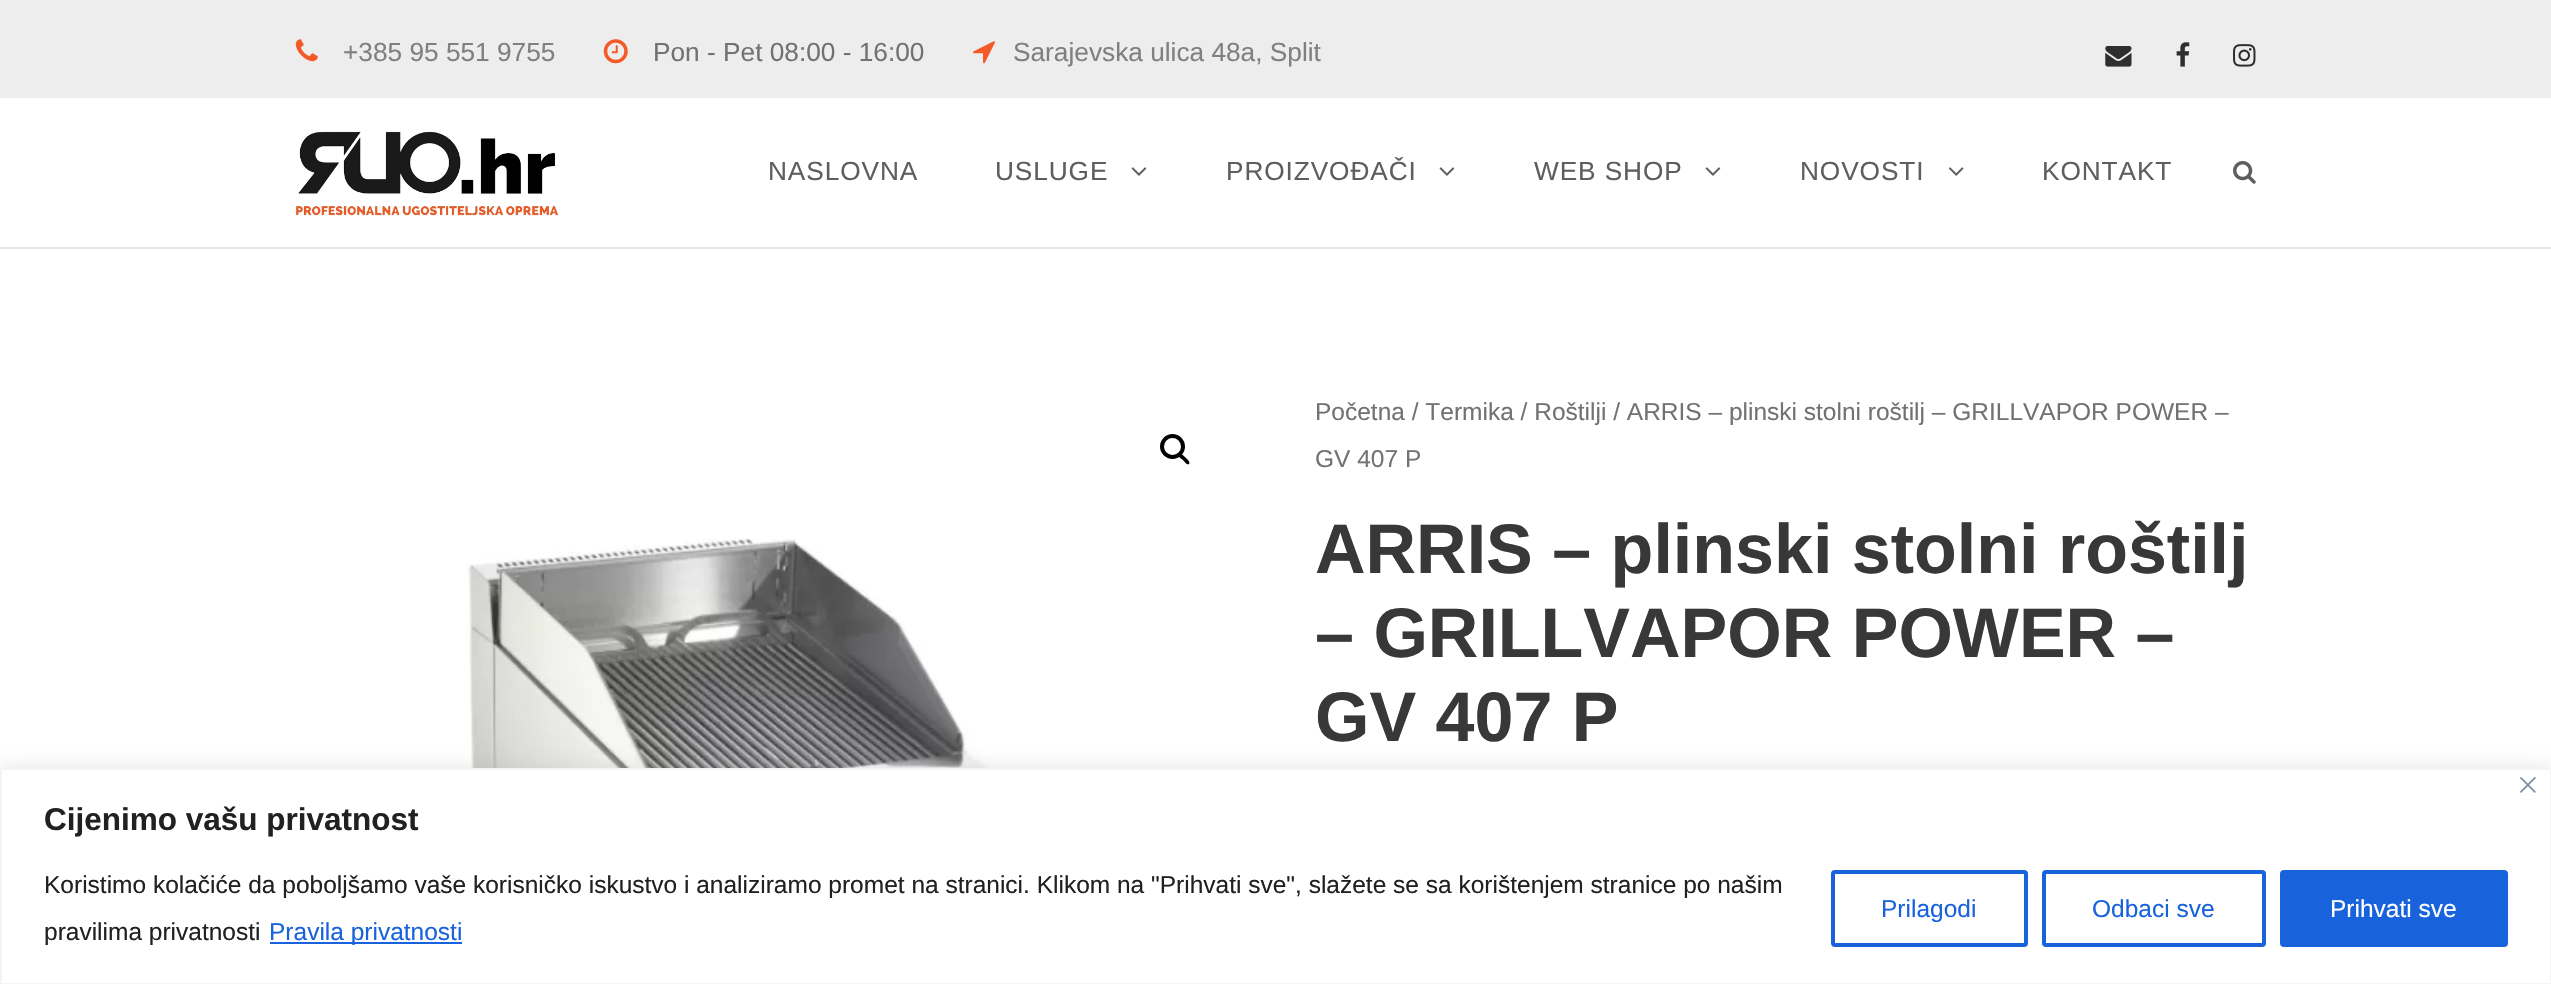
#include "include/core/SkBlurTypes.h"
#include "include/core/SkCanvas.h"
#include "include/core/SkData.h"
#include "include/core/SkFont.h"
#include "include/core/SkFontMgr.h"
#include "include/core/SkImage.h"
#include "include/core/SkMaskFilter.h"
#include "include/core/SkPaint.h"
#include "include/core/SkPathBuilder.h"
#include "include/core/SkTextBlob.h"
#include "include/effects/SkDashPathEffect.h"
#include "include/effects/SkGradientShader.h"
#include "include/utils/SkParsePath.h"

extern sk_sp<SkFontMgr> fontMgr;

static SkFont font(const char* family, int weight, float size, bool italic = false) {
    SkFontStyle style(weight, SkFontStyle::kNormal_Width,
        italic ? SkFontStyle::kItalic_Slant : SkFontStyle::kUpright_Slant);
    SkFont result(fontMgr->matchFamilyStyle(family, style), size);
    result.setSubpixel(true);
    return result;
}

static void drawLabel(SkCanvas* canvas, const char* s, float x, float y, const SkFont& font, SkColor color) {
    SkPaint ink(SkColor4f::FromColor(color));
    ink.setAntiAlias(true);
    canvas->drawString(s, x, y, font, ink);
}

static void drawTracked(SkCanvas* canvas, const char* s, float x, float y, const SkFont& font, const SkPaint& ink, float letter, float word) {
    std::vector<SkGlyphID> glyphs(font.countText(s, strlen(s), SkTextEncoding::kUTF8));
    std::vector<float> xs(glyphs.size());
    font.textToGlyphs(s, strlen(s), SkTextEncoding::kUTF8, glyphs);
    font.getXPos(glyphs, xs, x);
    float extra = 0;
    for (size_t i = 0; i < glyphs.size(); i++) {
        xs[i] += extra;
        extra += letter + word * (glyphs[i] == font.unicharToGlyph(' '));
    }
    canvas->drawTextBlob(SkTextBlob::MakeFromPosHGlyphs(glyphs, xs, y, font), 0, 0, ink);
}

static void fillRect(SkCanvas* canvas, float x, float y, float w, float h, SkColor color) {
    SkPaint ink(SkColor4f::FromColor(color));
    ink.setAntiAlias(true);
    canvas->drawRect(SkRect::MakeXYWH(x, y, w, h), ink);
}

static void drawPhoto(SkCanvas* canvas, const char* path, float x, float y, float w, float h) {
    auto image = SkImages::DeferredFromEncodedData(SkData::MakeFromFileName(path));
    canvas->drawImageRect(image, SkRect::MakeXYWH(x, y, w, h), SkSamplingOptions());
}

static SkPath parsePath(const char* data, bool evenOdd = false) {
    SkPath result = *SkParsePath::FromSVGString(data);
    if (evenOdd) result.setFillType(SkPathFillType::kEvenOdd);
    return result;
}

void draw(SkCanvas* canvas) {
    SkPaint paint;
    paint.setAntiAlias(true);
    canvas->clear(0xFFFFFFFF);
    fillRect(canvas, 0, 0, 2551, 98, 0xFFEDEDED);
    drawPhoto(canvas, "assets/img1.png", 295, 39, 23, 23);
    SkFont font1 = font("Liberation Sans", 400, 26.25f);
    drawLabel(canvas, "+385 95 551 9755", 343, 61, font1, 0xFF808080);
    drawPhoto(canvas, "assets/img2.png", 603, 39, 25, 25);
    drawLabel(canvas, "Pon - Pet 08:00 - 16:00", 653, 61, font1, 0xFF727272);
    drawPhoto(canvas, "assets/img3.png", 973, 41, 22, 23);
    drawLabel(canvas, "Sarajevska ulica 48a, Split", 1013, 61, font1, 0xFF808080);
    drawPhoto(canvas, "assets/img4.png", 2105, 46, 27, 21);
    drawPhoto(canvas, "assets/img5.png", 2176, 42, 14, 25);
    drawPhoto(canvas, "assets/img6.png", 2233, 44, 23, 23);
    drawPhoto(canvas, "assets/img7.png", 295, 131, 264, 85);
    paint.setColor(0xFF5E5E5E);
    drawTracked(canvas, "NASLOVNA", 768, 180, font1, paint, 0.9f, 0);
    drawTracked(canvas, "USLUGE", 995, 180, font1, paint, 0.9f, 0);
    drawPhoto(canvas, "assets/img8.png", 1131, 167, 16, 9);
    drawTracked(canvas, "PROIZVOĐAČI", 1226, 180, font1, paint, 0.9f, 0);
    drawPhoto(canvas, "assets/img8.png", 1439, 167, 16, 9);
    drawTracked(canvas, "WEB SHOP", 1534, 180, font1, paint, 0.9f, 0);
    drawPhoto(canvas, "assets/img8.png", 1705, 167, 16, 9);
    drawTracked(canvas, "NOVOSTI", 1800, 180, font1, paint, 0.9f, 0);
    drawPhoto(canvas, "assets/img9.png", 1948, 167, 16, 9);
    drawTracked(canvas, "KONTAKT", 2042, 180, font1, paint, 0.9f, 0);
    drawPhoto(canvas, "assets/img10.png", 2233, 161, 23, 23);
    fillRect(canvas, 0, 247, 2551, 2, 0xFFE6E6E6);
    paint.setStroke(true);
    paint.setStrokeWidth(4);
    paint.setColor(0xFF000000);
    canvas->drawCircle(1172.5f, 446.5f, 10.5f, paint);
    paint.setStroke(false);
    canvas->drawPath(parsePath("M1179 454C1181 452 1184 456.5 1185.5 457.5C1186.5 458.5 1191 462 1189 464C1187 465.5 1184 461 1183 460C1181.5 459 1177 456 1179 454Z"), paint);
    drawPhoto(canvas, "assets/img11.png", 452, 538, 554, 230);
    SkFont font2 = font("Liberation Sans", 400, 24.5f);
    drawLabel(canvas, "Početna / Termika / Roštilji / ARRIS – plinski stolni roštilj – GRILLVAPOR POWER –", 1315, 420, font2, 0xFF727272);
    drawLabel(canvas, "GV 407 P", 1315, 467, font2, 0xFF727272);
    SkFont font3 = font("Liberation Sans", 700, 70);
    drawLabel(canvas, "ARRIS – plinski stolni roštilj", 1315, 573, font3, 0xFF383838);
    drawLabel(canvas, "– GRILLVAPOR POWER –", 1315, 657, font3, 0xFF383838);
    drawLabel(canvas, "GV 407 P", 1315, 741, font3, 0xFF383838);
    paint.setColor(0x4DACABAB);
    paint.setMaskFilter(SkMaskFilter::MakeBlur(kNormal_SkBlurStyle, 9));
    canvas->drawRect(SkRect::MakeXYWH(0, 767, 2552, 217), paint);
    paint.setMaskFilter(nullptr);
    paint.setColor(0xFFFFFFFF);
    canvas->drawRect(SkRect::MakeXYWH(1, 769, 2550, 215), paint);
    paint.setStroke(true);
    paint.setStrokeWidth(2);
    paint.setColor(0xFFF4F4F4);
    canvas->drawRect(SkRect::MakeXYWH(1, 769, 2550, 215), paint);
    drawPhoto(canvas, "assets/img12.png", 2520, 777, 16, 16);
    SkFont font4 = font("Liberation Sans", 700, 31.5f);
    drawLabel(canvas, "Cijenimo vašu privatnost", 44, 830, font4, 0xFF212121);
    drawLabel(canvas, "Koristimo kolačiće da poboljšamo vaše korisničko iskustvo i analiziramo promet na stranici. Klikom na \"Prihvati sve\", slažete se sa korištenjem stranice po našim", 44, 893, font2, 0xFF212121);
    drawLabel(canvas, "pravilima privatnosti", 44, 940, font2, 0xFF212121);
    fillRect(canvas, 270, 942, 192, 2, 0xFF1863DC);
    drawLabel(canvas, "Pravila privatnosti", 269, 940, font2, 0xFF1863DC);
    paint.setStrokeWidth(4);
    paint.setColor(0xFF1863DC);
    canvas->drawRoundRect(SkRect::MakeXYWH(1833, 872, 193, 73), 2, 2, paint);
    drawLabel(canvas, "Prilagodi", 1881, 917, font2, 0xFF1863DC);
    canvas->drawRoundRect(SkRect::MakeXYWH(2044, 872, 220, 73), 2, 2, paint);
    drawLabel(canvas, "Odbaci sve", 2092, 917, font2, 0xFF1863DC);
    paint.setStroke(false);
    canvas->drawRoundRect(SkRect::MakeXYWH(2282, 872, 224, 73), 2, 2, paint);
    paint.setStroke(true);
    canvas->drawRoundRect(SkRect::MakeXYWH(2282, 872, 224, 73), 2, 2, paint);
    drawLabel(canvas, "Prihvati sve", 2330, 917, font2, 0xFFFFFFFF);
}
